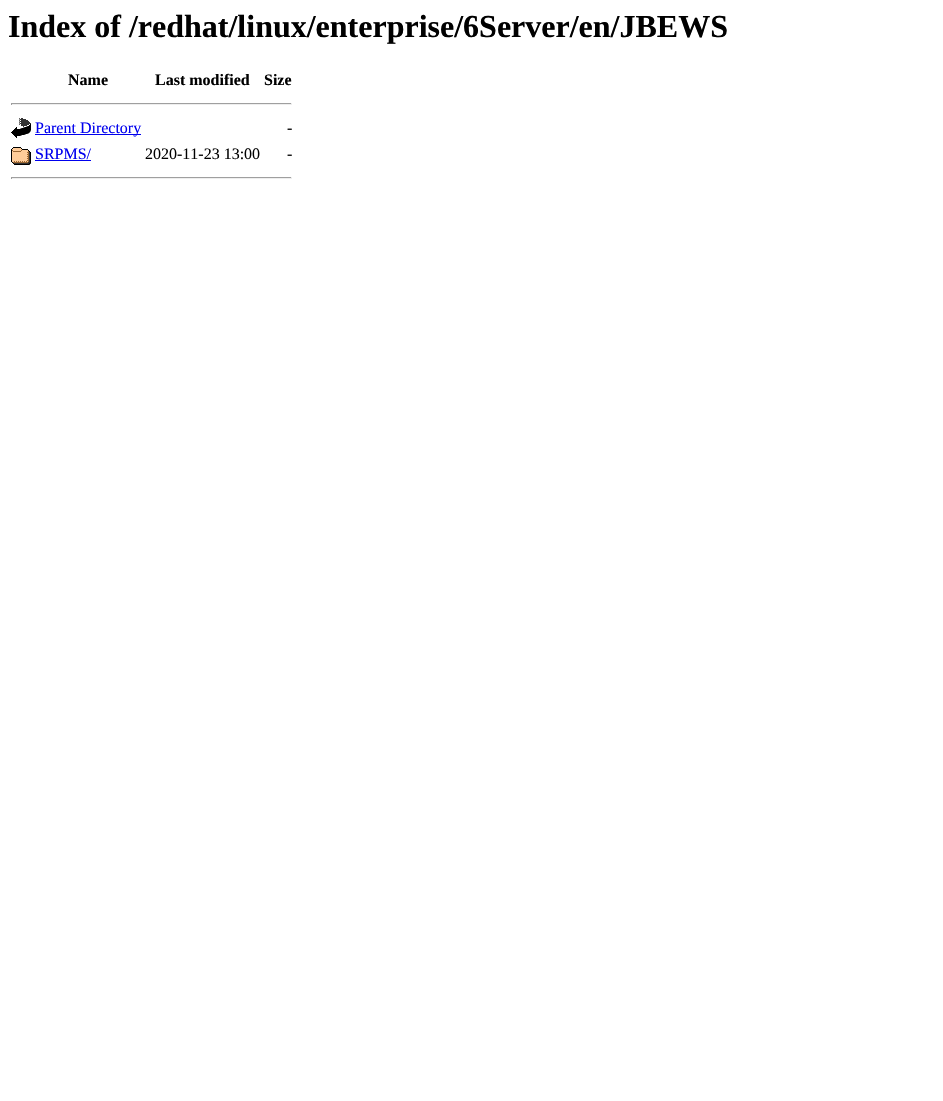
#include "include/core/SkBlurTypes.h"
#include "include/core/SkCanvas.h"
#include "include/core/SkData.h"
#include "include/core/SkFont.h"
#include "include/core/SkFontMgr.h"
#include "include/core/SkImage.h"
#include "include/core/SkMaskFilter.h"
#include "include/core/SkPaint.h"
#include "include/core/SkPathBuilder.h"
#include "include/core/SkTextBlob.h"
#include "include/effects/SkDashPathEffect.h"
#include "include/effects/SkGradientShader.h"
#include "include/utils/SkParsePath.h"

extern sk_sp<SkFontMgr> fontMgr;

static SkFont font(const char* family, int weight, float size, bool italic = false) {
    SkFontStyle style(weight, SkFontStyle::kNormal_Width,
        italic ? SkFontStyle::kItalic_Slant : SkFontStyle::kUpright_Slant);
    SkFont result(fontMgr->matchFamilyStyle(family, style), size);
    result.setSubpixel(true);
    return result;
}

static void drawLabel(SkCanvas* canvas, const char* s, float x, float y, const SkFont& font, SkColor color) {
    SkPaint ink(SkColor4f::FromColor(color));
    ink.setAntiAlias(true);
    canvas->drawString(s, x, y, font, ink);
}

static void fillRect(SkCanvas* canvas, float x, float y, float w, float h, SkColor color) {
    SkPaint ink(SkColor4f::FromColor(color));
    ink.setAntiAlias(true);
    canvas->drawRect(SkRect::MakeXYWH(x, y, w, h), ink);
}

static void drawPhoto(SkCanvas* canvas, const char* path, float x, float y, float w, float h) {
    auto image = SkImages::DeferredFromEncodedData(SkData::MakeFromFileName(path));
    canvas->drawImageRect(image, SkRect::MakeXYWH(x, y, w, h), SkSamplingOptions());
}

void draw(SkCanvas* canvas) {
    SkPaint paint;
    paint.setAntiAlias(true);
    canvas->clear(0xFFFFFFFF);
    SkFont font1 = font("Liberation Serif", 700, 32);
    drawLabel(canvas, "Index of /redhat/linux/enterprise/6Server/en/JBEWS", 8, 37, font1, 0xFF000000);
    SkFont font2 = font("Liberation Serif", 700, 16);
    drawLabel(canvas, "Name", 68, 85, font2, 0xFF000000);
    drawLabel(canvas, "Last modified", 155, 85, font2, 0xFF000000);
    drawLabel(canvas, "Size", 264, 85, font2, 0xFF000000);
    fillRect(canvas, 11, 103, 281, 1, 0xFF9F9F9F);
    fillRect(canvas, 291, 103, 1, 2, 0xFFEEEEEE);
    fillRect(canvas, 11, 104, 281, 1, 0xFFEEEEEE);
    fillRect(canvas, 11, 103, 1, 2, 0xFF9F9F9F);
    drawPhoto(canvas, "assets/img1.png", 11, 118, 20, 20);
    fillRect(canvas, 35, 134, 106, 1, 0xFF0000EE);
    SkFont font3 = font("Liberation Serif", 400, 16);
    drawLabel(canvas, "Parent Directory", 35, 133, font3, 0xFF0000EE);
    drawLabel(canvas, "-", 287, 133, font3, 0xFF000000);
    drawPhoto(canvas, "assets/img2.png", 11, 147, 20, 18);
    drawLabel(canvas, "SRPMS/", 35, 159, font3, 0xFF0000EE);
    fillRect(canvas, 35, 160, 56, 1, 0xFF0000EE);
    drawLabel(canvas, "2020-11-23 13:00", 145, 159, font3, 0xFF000000);
    drawLabel(canvas, "-", 287, 159, font3, 0xFF000000);
    fillRect(canvas, 11, 177, 281, 1, 0xFF9F9F9F);
    fillRect(canvas, 291, 177, 1, 2, 0xFFEEEEEE);
    fillRect(canvas, 11, 178, 281, 1, 0xFFEEEEEE);
    fillRect(canvas, 11, 177, 1, 2, 0xFF9F9F9F);
}
